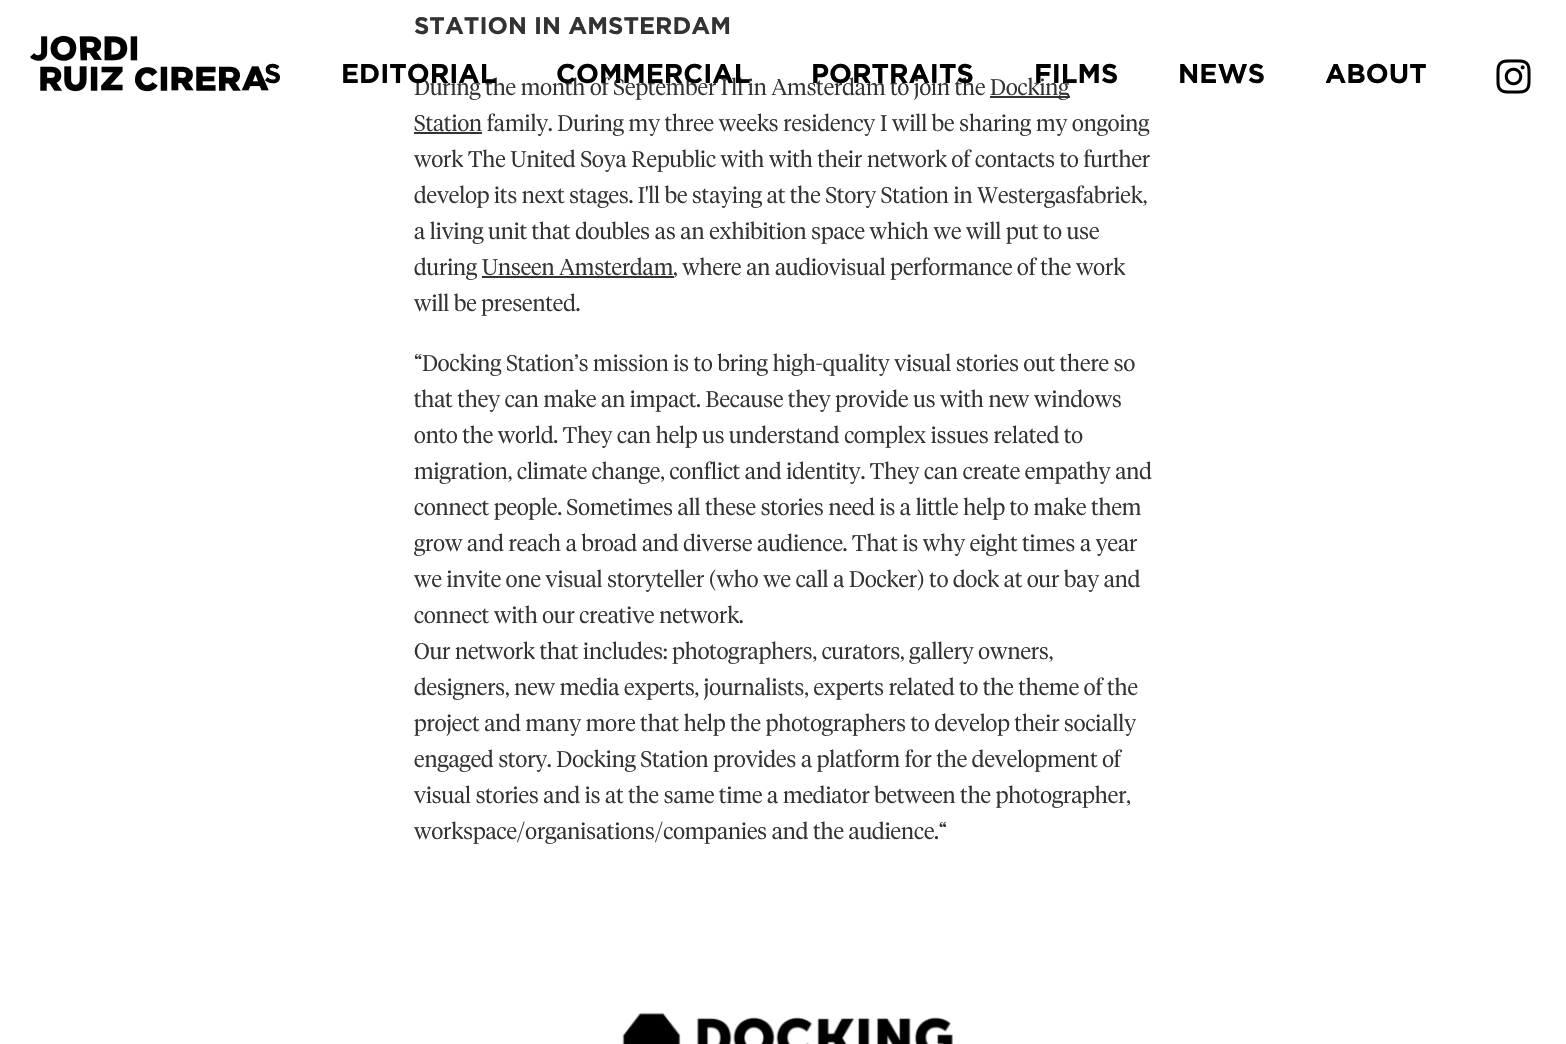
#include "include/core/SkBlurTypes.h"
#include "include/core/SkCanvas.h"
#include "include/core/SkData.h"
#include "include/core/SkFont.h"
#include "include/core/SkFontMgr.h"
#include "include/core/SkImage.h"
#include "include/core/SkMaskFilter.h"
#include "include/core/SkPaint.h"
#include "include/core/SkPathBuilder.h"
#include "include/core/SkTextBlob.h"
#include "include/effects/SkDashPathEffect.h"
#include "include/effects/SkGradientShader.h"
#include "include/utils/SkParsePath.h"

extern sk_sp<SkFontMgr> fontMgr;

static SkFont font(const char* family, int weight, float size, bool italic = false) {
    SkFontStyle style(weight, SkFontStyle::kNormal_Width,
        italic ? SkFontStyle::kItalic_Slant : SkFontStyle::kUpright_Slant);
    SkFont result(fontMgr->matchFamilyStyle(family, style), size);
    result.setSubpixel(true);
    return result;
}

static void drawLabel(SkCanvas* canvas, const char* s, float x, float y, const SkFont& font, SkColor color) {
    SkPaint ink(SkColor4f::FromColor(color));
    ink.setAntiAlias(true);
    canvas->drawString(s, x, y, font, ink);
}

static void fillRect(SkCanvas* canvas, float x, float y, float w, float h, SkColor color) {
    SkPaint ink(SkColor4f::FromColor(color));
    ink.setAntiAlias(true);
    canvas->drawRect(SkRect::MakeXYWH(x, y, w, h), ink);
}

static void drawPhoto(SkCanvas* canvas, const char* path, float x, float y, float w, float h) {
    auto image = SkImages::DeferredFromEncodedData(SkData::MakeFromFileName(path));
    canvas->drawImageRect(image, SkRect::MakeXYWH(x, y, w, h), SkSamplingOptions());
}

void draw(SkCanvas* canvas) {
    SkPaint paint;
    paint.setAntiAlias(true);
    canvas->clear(0xFFFFFFFF);
    SkFont font1 = font("Gotham", 700, 24);
    drawLabel(canvas, "STATION IN AMSTERDAM", 414, 34, font1, 0xFF333333);
    SkFont font2 = font("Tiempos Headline", 300, 22.5f);
    drawLabel(canvas, "During the month of September I'll in Amsterdam to join the", 414, 95, font2, 0xFF333333);
    fillRect(canvas, 990, 96, 80, 2, 0xFF333333);
    drawLabel(canvas, "Docking", 990, 95, font2, 0xFF333333);
    fillRect(canvas, 414, 132, 68, 2, 0xFF333333);
    drawLabel(canvas, "Station family. During my three weeks residency I will be sharing my ongoing", 414, 131, font2, 0xFF333333);
    drawLabel(canvas, "work The United Soya Republic with with their network of contacts to further", 414, 167, font2, 0xFF333333);
    drawLabel(canvas, "develop its next stages. I'll be staying at the Story Station in Westergasfabriek,", 414, 203, font2, 0xFF333333);
    drawLabel(canvas, "a living unit that doubles as an exhibition space which we will put to use", 414, 239, font2, 0xFF333333);
    drawLabel(canvas, "during Unseen Amsterdam", 414, 275, font2, 0xFF333333);
    fillRect(canvas, 482, 276, 192, 2, 0xFF333333);
    drawLabel(canvas, ", where an audiovisual performance of the work", 673, 275, font2, 0xFF333333);
    drawLabel(canvas, "will be presented.", 414, 311, font2, 0xFF333333);
    drawLabel(canvas, "“Docking Station’s mission is to bring high-quality visual stories out there so", 414, 371, font2, 0xFF333333);
    drawLabel(canvas, "that they can make an impact. Because they provide us with new windows", 414, 407, font2, 0xFF333333);
    drawLabel(canvas, "onto the world. They can help us understand complex issues related to", 414, 443, font2, 0xFF333333);
    drawLabel(canvas, "migration, climate change, conflict and identity. They can create empathy and", 414, 479, font2, 0xFF333333);
    drawLabel(canvas, "connect people. Sometimes all these stories need is a little help to make them", 414, 515, font2, 0xFF333333);
    drawLabel(canvas, "grow and reach a broad and diverse audience. That is why eight times a year", 414, 551, font2, 0xFF333333);
    drawLabel(canvas, "we invite one visual storyteller (who we call a Docker) to dock at our bay and", 414, 587, font2, 0xFF333333);
    drawLabel(canvas, "connect with our creative network.", 414, 623, font2, 0xFF333333);
    drawLabel(canvas, "Our network that includes: photographers, curators, gallery owners,", 414, 659, font2, 0xFF333333);
    drawLabel(canvas, "designers, new media experts, journalists, experts related to the theme of the", 414, 695, font2, 0xFF333333);
    drawLabel(canvas, "project and many more that help the photographers to develop their socially", 414, 731, font2, 0xFF333333);
    drawLabel(canvas, "engaged story. Docking Station provides a platform for the development of", 414, 767, font2, 0xFF333333);
    drawLabel(canvas, "visual stories and is at the same time a mediator between the photographer,", 414, 803, font2, 0xFF333333);
    drawLabel(canvas, "workspace/organisations/companies and the audience.“", 414, 839, font2, 0xFF333333);
    drawPhoto(canvas, "assets/img1.png", 622, 1012, 331, 32);
    drawPhoto(canvas, "assets/img2.png", 30, 35, 239, 57);
    SkFont font3 = font("Gotham", 700, 27);
    drawLabel(canvas, "S", 264, 83, font3, 0xFF000000);
    drawLabel(canvas, "EDITORIAL", 341, 83, font3, 0xFF000000);
    drawLabel(canvas, "COMMERCIAL", 556, 83, font3, 0xFF000000);
    drawLabel(canvas, "PORTRAITS", 811, 83, font3, 0xFF000000);
    drawLabel(canvas, "FILMS", 1034, 83, font3, 0xFF000000);
    drawLabel(canvas, "NEWS", 1178, 83, font3, 0xFF000000);
    drawLabel(canvas, "ABOUT", 1325, 83, font3, 0xFF000000);
    drawPhoto(canvas, "assets/img3.png", 1496, 59, 35, 35);
}
